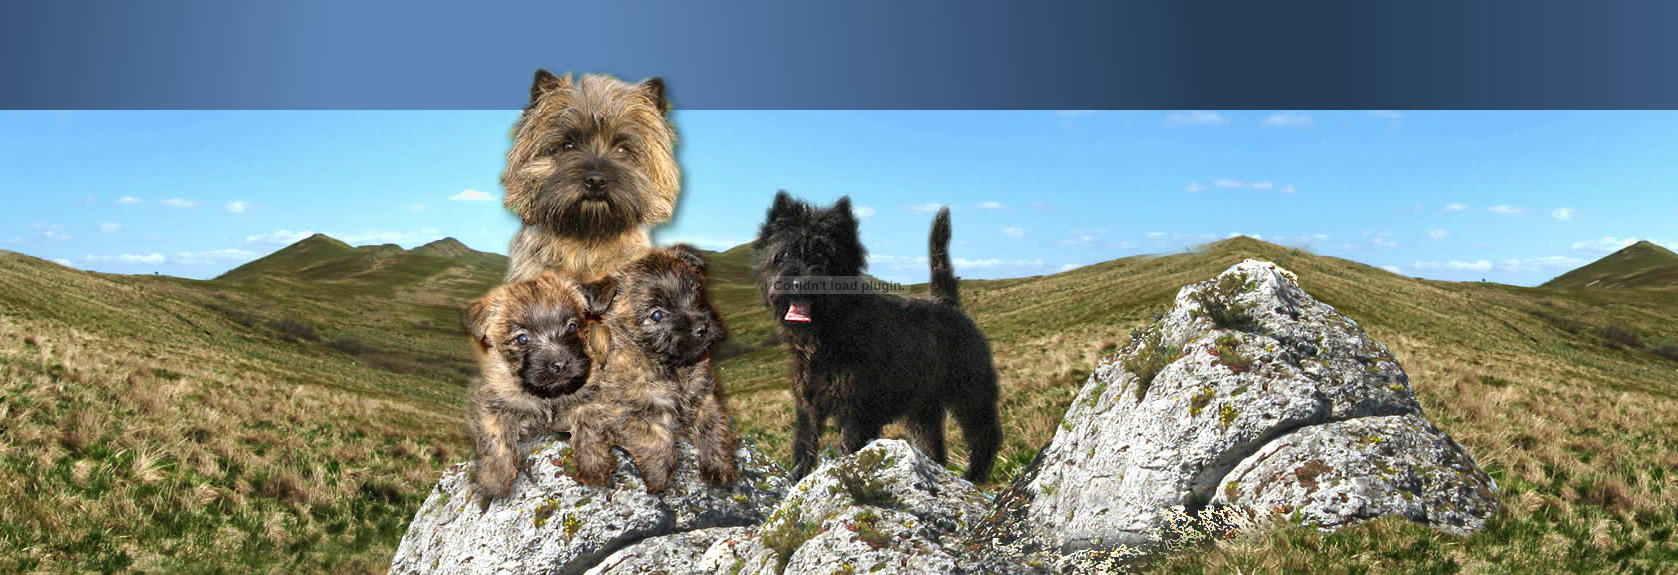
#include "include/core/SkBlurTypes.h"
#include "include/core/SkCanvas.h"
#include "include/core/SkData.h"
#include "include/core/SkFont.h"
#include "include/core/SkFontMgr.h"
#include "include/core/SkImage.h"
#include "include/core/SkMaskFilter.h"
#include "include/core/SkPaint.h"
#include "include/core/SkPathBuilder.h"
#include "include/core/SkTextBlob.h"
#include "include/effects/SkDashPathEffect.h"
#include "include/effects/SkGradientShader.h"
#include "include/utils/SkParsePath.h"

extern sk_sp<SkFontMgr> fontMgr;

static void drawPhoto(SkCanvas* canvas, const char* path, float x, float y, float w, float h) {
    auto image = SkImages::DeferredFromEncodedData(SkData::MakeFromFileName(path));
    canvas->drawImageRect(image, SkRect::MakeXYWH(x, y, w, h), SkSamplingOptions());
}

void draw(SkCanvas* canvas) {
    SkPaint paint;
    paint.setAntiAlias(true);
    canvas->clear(0xFFFFFFFF);
    drawPhoto(canvas, "assets/img1.png", 0, 0, 1678, 575);
    drawPhoto(canvas, "assets/img2.png", 767, 276, 144, 18);
}
